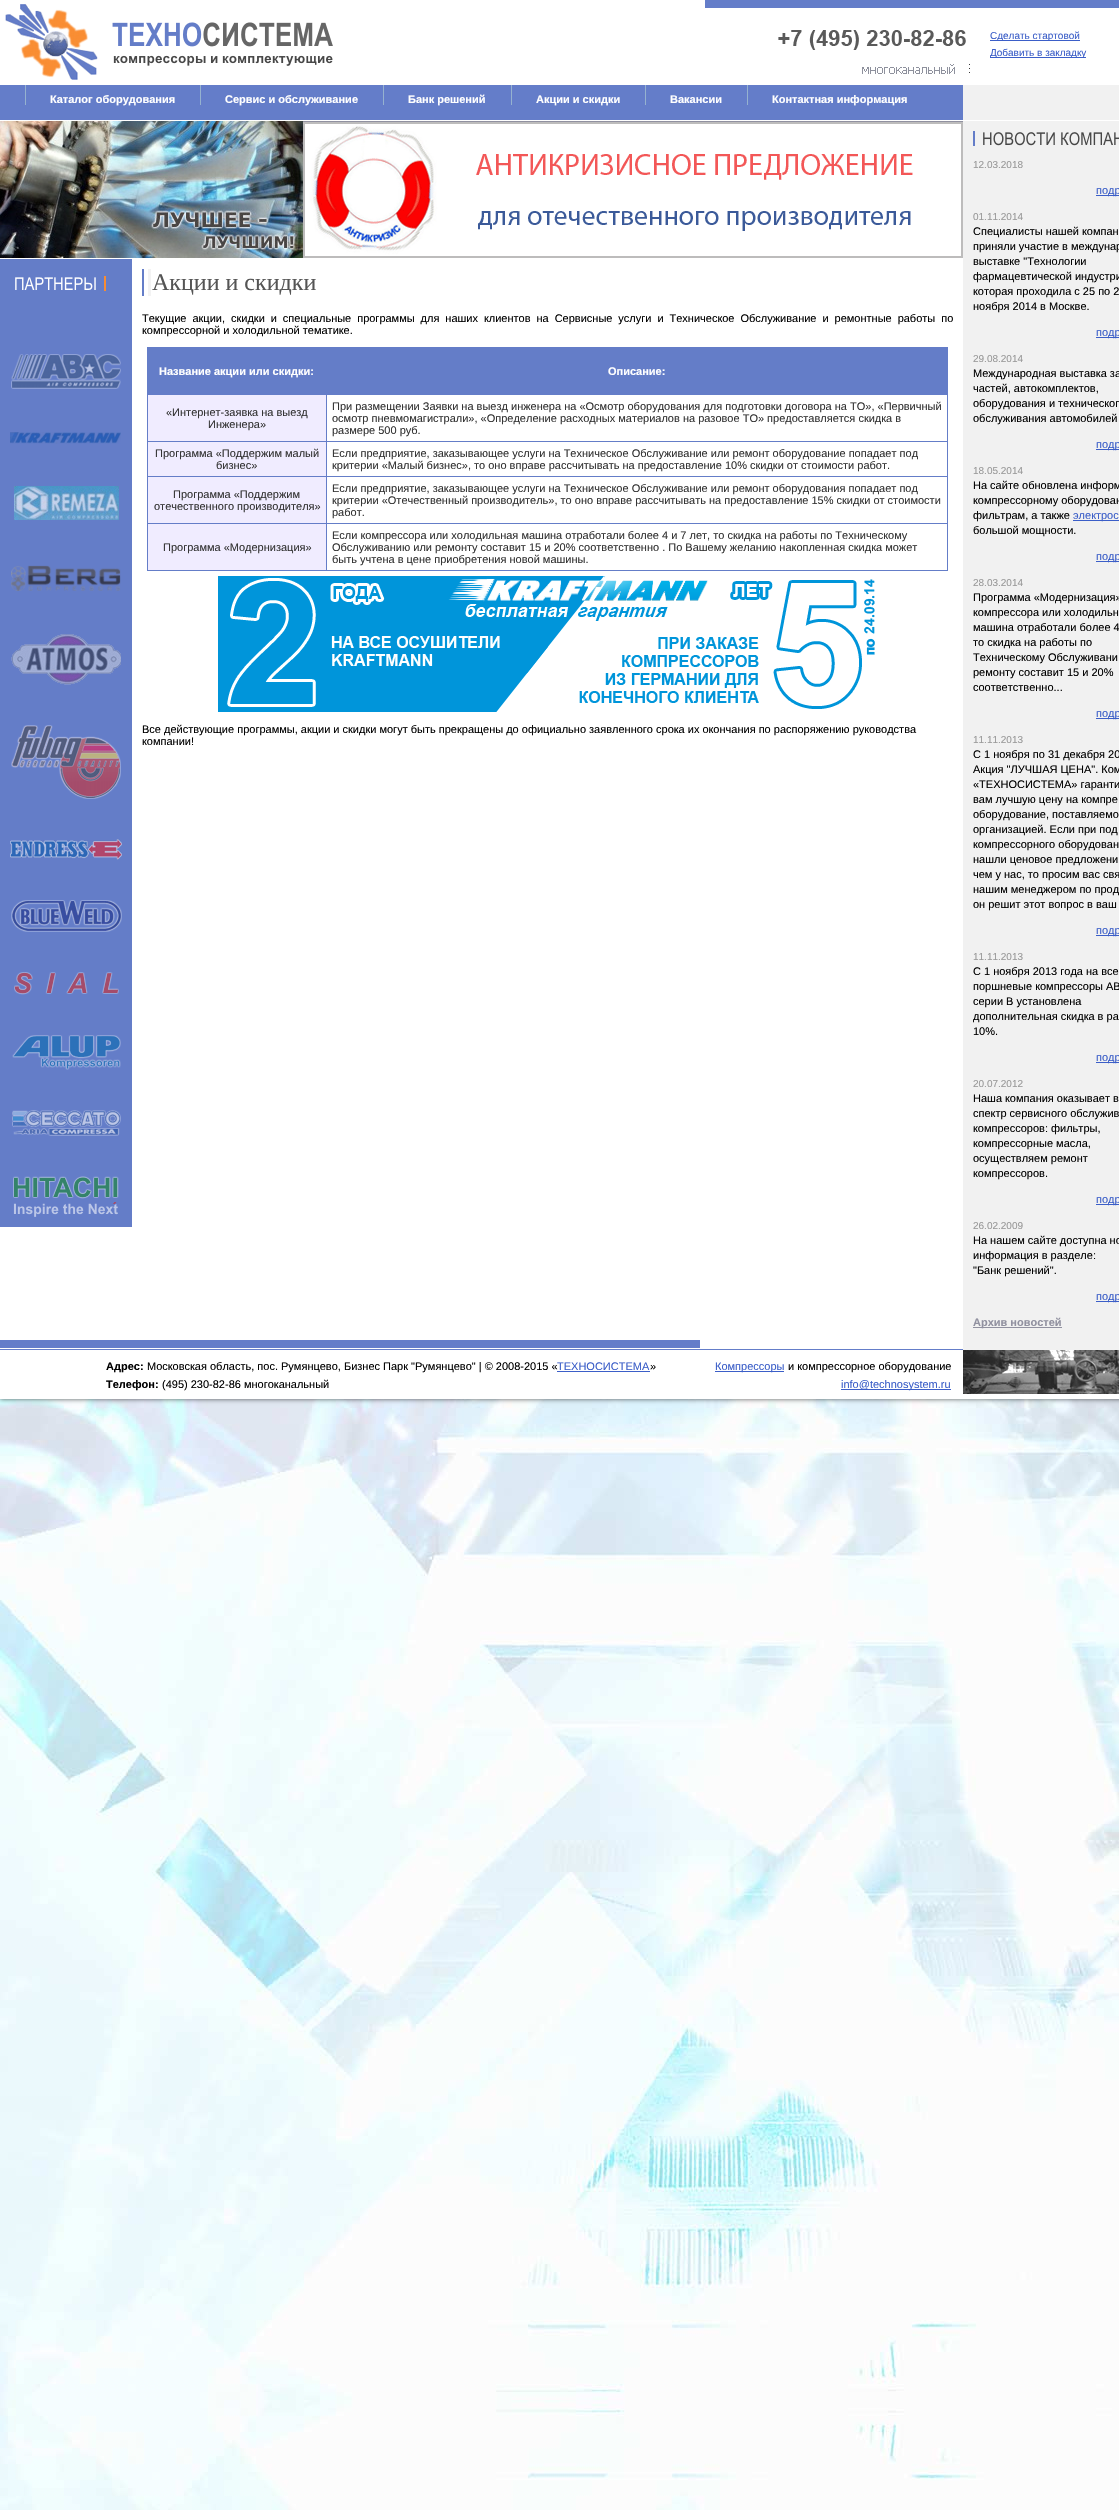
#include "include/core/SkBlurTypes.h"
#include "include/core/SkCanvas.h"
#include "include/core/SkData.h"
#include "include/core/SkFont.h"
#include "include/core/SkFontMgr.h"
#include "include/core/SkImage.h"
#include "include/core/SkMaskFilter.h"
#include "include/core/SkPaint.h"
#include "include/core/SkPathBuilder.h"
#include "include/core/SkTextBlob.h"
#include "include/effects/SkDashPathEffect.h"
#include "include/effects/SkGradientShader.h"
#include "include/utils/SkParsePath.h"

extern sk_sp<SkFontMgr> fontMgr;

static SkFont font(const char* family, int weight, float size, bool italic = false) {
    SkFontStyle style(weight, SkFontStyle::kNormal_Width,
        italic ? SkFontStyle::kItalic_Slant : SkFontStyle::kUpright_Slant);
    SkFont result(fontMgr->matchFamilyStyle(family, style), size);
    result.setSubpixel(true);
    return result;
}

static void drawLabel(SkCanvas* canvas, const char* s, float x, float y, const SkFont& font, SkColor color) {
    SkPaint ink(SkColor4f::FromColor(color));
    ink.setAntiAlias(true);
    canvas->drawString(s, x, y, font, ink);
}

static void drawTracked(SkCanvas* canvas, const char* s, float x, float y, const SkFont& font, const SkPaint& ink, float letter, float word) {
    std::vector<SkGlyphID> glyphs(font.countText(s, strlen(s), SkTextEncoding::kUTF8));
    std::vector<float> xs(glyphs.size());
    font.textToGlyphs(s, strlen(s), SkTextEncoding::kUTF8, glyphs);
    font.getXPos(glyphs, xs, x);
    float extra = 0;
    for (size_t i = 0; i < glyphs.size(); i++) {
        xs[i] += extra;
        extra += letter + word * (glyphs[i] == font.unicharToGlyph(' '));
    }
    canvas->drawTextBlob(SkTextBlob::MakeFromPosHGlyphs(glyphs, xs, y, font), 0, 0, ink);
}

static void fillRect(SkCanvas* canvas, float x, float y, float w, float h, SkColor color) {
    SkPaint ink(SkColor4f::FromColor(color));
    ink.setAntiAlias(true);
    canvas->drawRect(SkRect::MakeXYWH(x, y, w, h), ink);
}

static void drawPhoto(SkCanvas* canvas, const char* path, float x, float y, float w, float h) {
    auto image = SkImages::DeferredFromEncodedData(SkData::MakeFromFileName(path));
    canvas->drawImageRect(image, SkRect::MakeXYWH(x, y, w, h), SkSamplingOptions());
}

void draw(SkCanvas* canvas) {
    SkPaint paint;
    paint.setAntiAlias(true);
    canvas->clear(0xFFFFFFFF);
    drawPhoto(canvas, "assets/img1.png", 0, 1399, 1119, 1111);
    paint.setColor(0xA6000000);
    paint.setMaskFilter(SkMaskFilter::MakeBlur(kNormal_SkBlurStyle, 2.5f));
    canvas->drawRect(SkRect::MakeXYWH(0, 0, 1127, 1399), paint);
    paint.setMaskFilter(nullptr);
    fillRect(canvas, 0, 0, 1119, 1399, 0xFFFFFFFF);
    drawPhoto(canvas, "assets/img2.png", 20, 4, 8, 4);
    fillRect(canvas, 705, 0, 414, 8, 0xFF647DC9);
    drawPhoto(canvas, "assets/img3.png", 5, 8, 328, 72);
    drawPhoto(canvas, "assets/img4.png", 778, 30, 192, 44);
    fillRect(canvas, 990, 40, 90, 1, 0xFF3B5EC8);
    SkFont font1 = font("Liberation Sans", 400, 10);
    drawLabel(canvas, "Сделать стартовой", 990, 39, font1, 0xFF3B5EC8);
    fillRect(canvas, 990, 57, 96, 1, 0xFF3B5EC8);
    drawLabel(canvas, "Добавить в закладку", 990, 56, font1, 0xFF3B5EC8);
    fillRect(canvas, 0, 85, 963, 35, 0xFF647DC9);
    fillRect(canvas, 25, 85, 1, 20, 0xFF95B2CF);
    SkFont font2 = font("Liberation Sans", 700, 11);
    drawLabel(canvas, "Каталог оборудования", 50, 103, font2, 0xFFFFFFFF);
    fillRect(canvas, 200, 85, 1, 20, 0xFF95B2CF);
    drawLabel(canvas, "Сервис и обслуживание", 225, 103, font2, 0xFFFFFFFF);
    fillRect(canvas, 383, 85, 1, 20, 0xFF95B2CF);
    drawLabel(canvas, "Банк решений", 408, 103, font2, 0xFFFFFFFF);
    fillRect(canvas, 511, 85, 1, 20, 0xFF95B2CF);
    drawLabel(canvas, "Акции и скидки", 536, 103, font2, 0xFFFFFFFF);
    fillRect(canvas, 645, 85, 1, 20, 0xFF95B2CF);
    drawLabel(canvas, "Вакансии", 670, 103, font2, 0xFFFFFFFF);
    fillRect(canvas, 747, 85, 1, 20, 0xFF95B2CF);
    drawLabel(canvas, "Контактная информация", 772, 103, font2, 0xFFFFFFFF);
    fillRect(canvas, 963, 85, 156, 35, 0xFFF1F1F1);
    drawPhoto(canvas, "assets/img5.png", 0, 121, 303, 137);
    fillRect(canvas, 303, 121, 660, 1, 0xFF9191A0);
    drawPhoto(canvas, "assets/img6.png", 303, 122, 660, 136);
    fillRect(canvas, 0, 259, 132, 968, 0xFF647DC8);
    drawPhoto(canvas, "assets/img7.png", 15, 276, 91, 15);
    drawPhoto(canvas, "assets/img8.png", 11, 354, 110, 35);
    drawPhoto(canvas, "assets/img9.png", 10, 432, 111, 12);
    drawPhoto(canvas, "assets/img10.png", 14, 486, 105, 34);
    drawPhoto(canvas, "assets/img11.png", 11, 565, 110, 26);
    drawPhoto(canvas, "assets/img12.png", 11, 634, 110, 51);
    drawPhoto(canvas, "assets/img13.png", 11, 725, 110, 74);
    drawPhoto(canvas, "assets/img14.png", 10, 839, 112, 21);
    drawPhoto(canvas, "assets/img15.png", 11, 900, 111, 32);
    drawPhoto(canvas, "assets/img16.png", 14, 972, 105, 23);
    drawPhoto(canvas, "assets/img17.png", 12, 1035, 109, 35);
    drawPhoto(canvas, "assets/img18.png", 12, 1110, 109, 26);
    drawPhoto(canvas, "assets/img19.png", 13, 1176, 106, 41);
    drawPhoto(canvas, "assets/img20.png", 142, 269, 9, 27);
    SkFont font3 = font("Liberation Serif", 400, 24);
    drawLabel(canvas, "Акции и скидки", 152, 290, font3, 0xFF555555);
    SkFont font4 = font("Liberation Sans", 400, 11);
    paint.setColor(0xFF000000);
    drawTracked(canvas, "Текущие акции, скидки и специальные программы для наших клиентов на Сервисные услуги и Техническое Обслуживание и ремонтные работы по", 142, 322, font4, paint, 0, 2.9f);
    drawLabel(canvas, "компрессорной и холодильной тематике.", 142, 334, font4, 0xFF000000);
    fillRect(canvas, 147, 347, 801, 1, 0xFF647DC8);
    fillRect(canvas, 947, 347, 1, 224, 0xFF647DC8);
    fillRect(canvas, 147, 348, 800, 47, 0xFF647DC8);
    drawLabel(canvas, "Название акции или скидки:", 159, 375, font2, 0xFFFFFFFF);
    drawLabel(canvas, "Описание:", 608, 375, font2, 0xFFFFFFFF);
    fillRect(canvas, 148, 395, 178, 46, 0xFFF0ECFF);
    fillRect(canvas, 147, 441, 800, 1, 0xFF647DC8);
    fillRect(canvas, 147, 395, 1, 47, 0xFF647DC8);
    drawLabel(canvas, "«Интернет-заявка на выезд", 166, 416, font4, 0xFF333333);
    drawLabel(canvas, "Инженера»", 208, 428, font4, 0xFF333333);
    fillRect(canvas, 326, 395, 1, 47, 0xFF647DC8);
    drawLabel(canvas, "При размещении Заявки на выезд инженера на «Осмотр оборудования для подготовки договора на ТО», «Первичный", 332, 410, font4, 0xFF333333);
    drawLabel(canvas, "осмотр пневмомагистрали», «Определение расходных материалов на разовое ТО» предоставляется скидка в", 332, 422, font4, 0xFF333333);
    drawLabel(canvas, "размере 500 руб.", 332, 434, font4, 0xFF333333);
    fillRect(canvas, 148, 442, 178, 34, 0xFFF0ECFF);
    fillRect(canvas, 147, 476, 800, 1, 0xFF647DC8);
    fillRect(canvas, 147, 442, 1, 35, 0xFF647DC8);
    drawLabel(canvas, "Программа «Поддержим малый", 155, 457, font4, 0xFF333333);
    drawLabel(canvas, "бизнес»", 216, 469, font4, 0xFF333333);
    fillRect(canvas, 326, 442, 1, 35, 0xFF647DC8);
    drawLabel(canvas, "Если предприятие, заказывающее услуги на Техническое Обслуживание или ремонт оборудование попадает под", 332, 457, font4, 0xFF333333);
    drawLabel(canvas, "критерии «Малый бизнес», то оно вправе рассчитывать на предоставление 10% скидки от стоимости работ.", 332, 469, font4, 0xFF333333);
    fillRect(canvas, 148, 477, 178, 46, 0xFFF0ECFF);
    fillRect(canvas, 147, 523, 800, 1, 0xFF647DC8);
    fillRect(canvas, 147, 477, 1, 47, 0xFF647DC8);
    drawLabel(canvas, "Программа «Поддержим", 173, 498, font4, 0xFF333333);
    drawLabel(canvas, "отечественного производителя»", 154, 510, font4, 0xFF333333);
    fillRect(canvas, 326, 477, 1, 47, 0xFF647DC8);
    drawLabel(canvas, "Если предприятие, заказывающее услуги на Техническое Обслуживание или ремонт оборудования попадает под", 332, 492, font4, 0xFF333333);
    drawLabel(canvas, "критерии «Отечественный производитель», то оно вправе рассчитывать на предоставление 15% скидки от стоимости", 332, 504, font4, 0xFF333333);
    drawLabel(canvas, "работ.", 332, 516, font4, 0xFF333333);
    fillRect(canvas, 148, 524, 178, 46, 0xFFF0ECFF);
    fillRect(canvas, 147, 570, 800, 1, 0xFF647DC8);
    fillRect(canvas, 147, 524, 1, 47, 0xFF647DC8);
    drawLabel(canvas, "Программа «Модернизация»", 163, 551, font4, 0xFF333333);
    fillRect(canvas, 326, 524, 1, 47, 0xFF647DC8);
    drawLabel(canvas, "Если компрессора или холодильная машина отработали более 4 и 7 лет, то скидка на работы по Техническому", 332, 539, font4, 0xFF333333);
    drawLabel(canvas, "Обслуживанию или ремонту составит 15 и 20% соответственно . По Вашему желанию накопленная скидка может", 332, 551, font4, 0xFF333333);
    drawLabel(canvas, "быть учтена в цене приобретения новой машины.", 332, 563, font4, 0xFF333333);
    drawPhoto(canvas, "assets/img21.png", 218, 576, 657, 136);
    drawLabel(canvas, "Все действующие программы, акции и скидки могут быть прекращены до официально заявленного срока их окончания по распоряжению руководства", 142, 733, font4, 0xFF000000);
    drawLabel(canvas, "компании!", 142, 745, font4, 0xFF000000);
    fillRect(canvas, 963, 121, 156, 1229, 0xFFF1F1F1);
    drawPhoto(canvas, "assets/img22.png", 973, 131, 146, 15);
    drawLabel(canvas, "12.03.2018", 973, 168, font1, 0xFF999999);
    fillRect(canvas, 1096, 195, 23, 1, 0xFF3B5EC8);
    drawLabel(canvas, "подр", 1096, 194, font4, 0xFF3B5EC8);
    drawLabel(canvas, "01.11.2014", 973, 220, font1, 0xFF999999);
    drawLabel(canvas, "Специалисты нашей компан", 973, 235, font4, 0xFF000000);
    drawLabel(canvas, "приняли участие в междунар", 973, 250, font4, 0xFF000000);
    drawLabel(canvas, "выставке \"Технологии", 973, 265, font4, 0xFF000000);
    drawLabel(canvas, "фармацевтической индустри", 973, 280, font4, 0xFF000000);
    drawLabel(canvas, "которая проходила с 25 по 2", 973, 295, font4, 0xFF000000);
    drawLabel(canvas, "ноября 2014 в Москве.", 973, 310, font4, 0xFF000000);
    fillRect(canvas, 1096, 337, 23, 1, 0xFF3B5EC8);
    drawLabel(canvas, "подр", 1096, 336, font4, 0xFF3B5EC8);
    drawLabel(canvas, "29.08.2014", 973, 362, font1, 0xFF999999);
    drawLabel(canvas, "Международная выставка за", 973, 377, font4, 0xFF000000);
    drawLabel(canvas, "частей, автокомплектов,", 973, 392, font4, 0xFF000000);
    drawLabel(canvas, "оборудования и техническог", 973, 407, font4, 0xFF000000);
    drawLabel(canvas, "обслуживания автомобилей", 973, 422, font4, 0xFF000000);
    fillRect(canvas, 1096, 449, 23, 1, 0xFF3B5EC8);
    drawLabel(canvas, "подр", 1096, 448, font4, 0xFF3B5EC8);
    drawLabel(canvas, "18.05.2014", 973, 474, font1, 0xFF999999);
    drawLabel(canvas, "На сайте обновлена информ", 973, 489, font4, 0xFF000000);
    drawLabel(canvas, "компрессорному оборудован", 973, 504, font4, 0xFF000000);
    drawLabel(canvas, "фильтрам, а также", 973, 519, font4, 0xFF000000);
    fillRect(canvas, 1073, 520, 46, 1, 0xFF3B5EC8);
    drawLabel(canvas, "электрос", 1073, 519, font4, 0xFF3B5EC8);
    drawLabel(canvas, "большой мощности.", 973, 534, font4, 0xFF000000);
    fillRect(canvas, 1096, 561, 23, 1, 0xFF3B5EC8);
    drawLabel(canvas, "подр", 1096, 560, font4, 0xFF3B5EC8);
    drawLabel(canvas, "28.03.2014", 973, 586, font1, 0xFF999999);
    drawLabel(canvas, "Программа «Модернизация»", 973, 601, font4, 0xFF000000);
    drawLabel(canvas, "компрессора или холодильн", 973, 616, font4, 0xFF000000);
    drawLabel(canvas, "машина отработали более 4", 973, 631, font4, 0xFF000000);
    drawLabel(canvas, "то скидка на работы по", 973, 646, font4, 0xFF000000);
    drawLabel(canvas, "Техническому Обслуживани", 973, 661, font4, 0xFF000000);
    drawLabel(canvas, "ремонту составит 15 и 20%", 973, 676, font4, 0xFF000000);
    drawLabel(canvas, "соответственно...", 973, 691, font4, 0xFF000000);
    fillRect(canvas, 1096, 718, 23, 1, 0xFF3B5EC8);
    drawLabel(canvas, "подр", 1096, 717, font4, 0xFF3B5EC8);
    drawLabel(canvas, "11.11.2013", 973, 743, font1, 0xFF999999);
    drawLabel(canvas, "С 1 ноября по 31 декабря 20", 973, 758, font4, 0xFF000000);
    drawLabel(canvas, "Акция \"ЛУЧШАЯ ЦЕНА\". Ком", 973, 773, font4, 0xFF000000);
    drawLabel(canvas, "«ТЕХНОСИСТЕМА» гаранти", 973, 788, font4, 0xFF000000);
    drawLabel(canvas, "вам лучшую цену на компре", 973, 803, font4, 0xFF000000);
    drawLabel(canvas, "оборудование, поставляемо", 973, 818, font4, 0xFF000000);
    drawLabel(canvas, "организацией. Если при под", 973, 833, font4, 0xFF000000);
    drawLabel(canvas, "компрессорного оборудован", 973, 848, font4, 0xFF000000);
    drawLabel(canvas, "нашли ценовое предложени", 973, 863, font4, 0xFF000000);
    drawLabel(canvas, "чем у нас, то просим вас свя", 973, 878, font4, 0xFF000000);
    drawLabel(canvas, "нашим менеджером по прод", 973, 893, font4, 0xFF000000);
    drawLabel(canvas, "он решит этот вопрос в ваш", 973, 908, font4, 0xFF000000);
    fillRect(canvas, 1096, 935, 23, 1, 0xFF3B5EC8);
    drawLabel(canvas, "подр", 1096, 934, font4, 0xFF3B5EC8);
    drawLabel(canvas, "11.11.2013", 973, 960, font1, 0xFF999999);
    drawLabel(canvas, "С 1 ноября 2013 года на все", 973, 975, font4, 0xFF000000);
    drawLabel(canvas, "поршневые компрессоры AB", 973, 990, font4, 0xFF000000);
    drawLabel(canvas, "серии B установлена", 973, 1005, font4, 0xFF000000);
    drawLabel(canvas, "дополнительная скидка в ра", 973, 1020, font4, 0xFF000000);
    drawLabel(canvas, "10%.", 973, 1035, font4, 0xFF000000);
    fillRect(canvas, 1096, 1062, 23, 1, 0xFF3B5EC8);
    drawLabel(canvas, "подр", 1096, 1061, font4, 0xFF3B5EC8);
    drawLabel(canvas, "20.07.2012", 973, 1087, font1, 0xFF999999);
    drawLabel(canvas, "Наша компания оказывает в", 973, 1102, font4, 0xFF000000);
    drawLabel(canvas, "спектр сервисного обслужив", 973, 1117, font4, 0xFF000000);
    drawLabel(canvas, "компрессоров: фильтры,", 973, 1132, font4, 0xFF000000);
    drawLabel(canvas, "компрессорные масла,", 973, 1147, font4, 0xFF000000);
    drawLabel(canvas, "осуществляем ремонт", 973, 1162, font4, 0xFF000000);
    drawLabel(canvas, "компрессоров.", 973, 1177, font4, 0xFF000000);
    fillRect(canvas, 1096, 1204, 23, 1, 0xFF3B5EC8);
    drawLabel(canvas, "подр", 1096, 1203, font4, 0xFF3B5EC8);
    drawLabel(canvas, "26.02.2009", 973, 1229, font1, 0xFF999999);
    drawLabel(canvas, "На нашем сайте доступна но", 973, 1244, font4, 0xFF000000);
    drawLabel(canvas, "информация в разделе:", 973, 1259, font4, 0xFF000000);
    drawLabel(canvas, "\"Банк решений\".", 973, 1274, font4, 0xFF000000);
    fillRect(canvas, 1096, 1301, 23, 1, 0xFF3B5EC8);
    drawLabel(canvas, "подр", 1096, 1300, font4, 0xFF3B5EC8);
    fillRect(canvas, 973, 1327, 89, 1, 0xFF9191A0);
    drawLabel(canvas, "Архив новостей", 973, 1326, font2, 0xFF9191A0);
    fillRect(canvas, 0, 1340, 700, 8, 0xFF647DC9);
    fillRect(canvas, 0, 1349, 963, 1, 0xFF647DC9);
    drawLabel(canvas, "Адрес:", 106, 1370, font2, 0xFF000000);
    drawLabel(canvas, "Московская область, пос. Румянцево, Бизнес Парк \"Румянцево\" | © 2008-2015 «", 147, 1370, font4, 0xFF000000);
    drawLabel(canvas, "ТЕХНОСИСТЕМА", 557, 1370, font4, 0xFF3B5EC8);
    fillRect(canvas, 557, 1371, 93, 1, 0xFF3B5EC8);
    drawLabel(canvas, "»", 650, 1370, font4, 0xFF000000);
    drawLabel(canvas, "Телефон:", 106, 1388, font2, 0xFF000000);
    drawLabel(canvas, "(495) 230-82-86 многоканальный", 162, 1388, font4, 0xFF000000);
    fillRect(canvas, 715, 1371, 69, 1, 0xFF3B5EC8);
    drawLabel(canvas, "Компрессоры", 715, 1370, font4, 0xFF3B5EC8);
    drawLabel(canvas, "и компрессорное оборудование", 788, 1370, font4, 0xFF000000);
    fillRect(canvas, 841, 1389, 110, 1, 0xFF3B5EC8);
    drawLabel(canvas, "info@technosystem.ru", 841, 1388, font4, 0xFF3B5EC8);
    drawPhoto(canvas, "assets/img23.png", 963, 1350, 156, 44);
}
